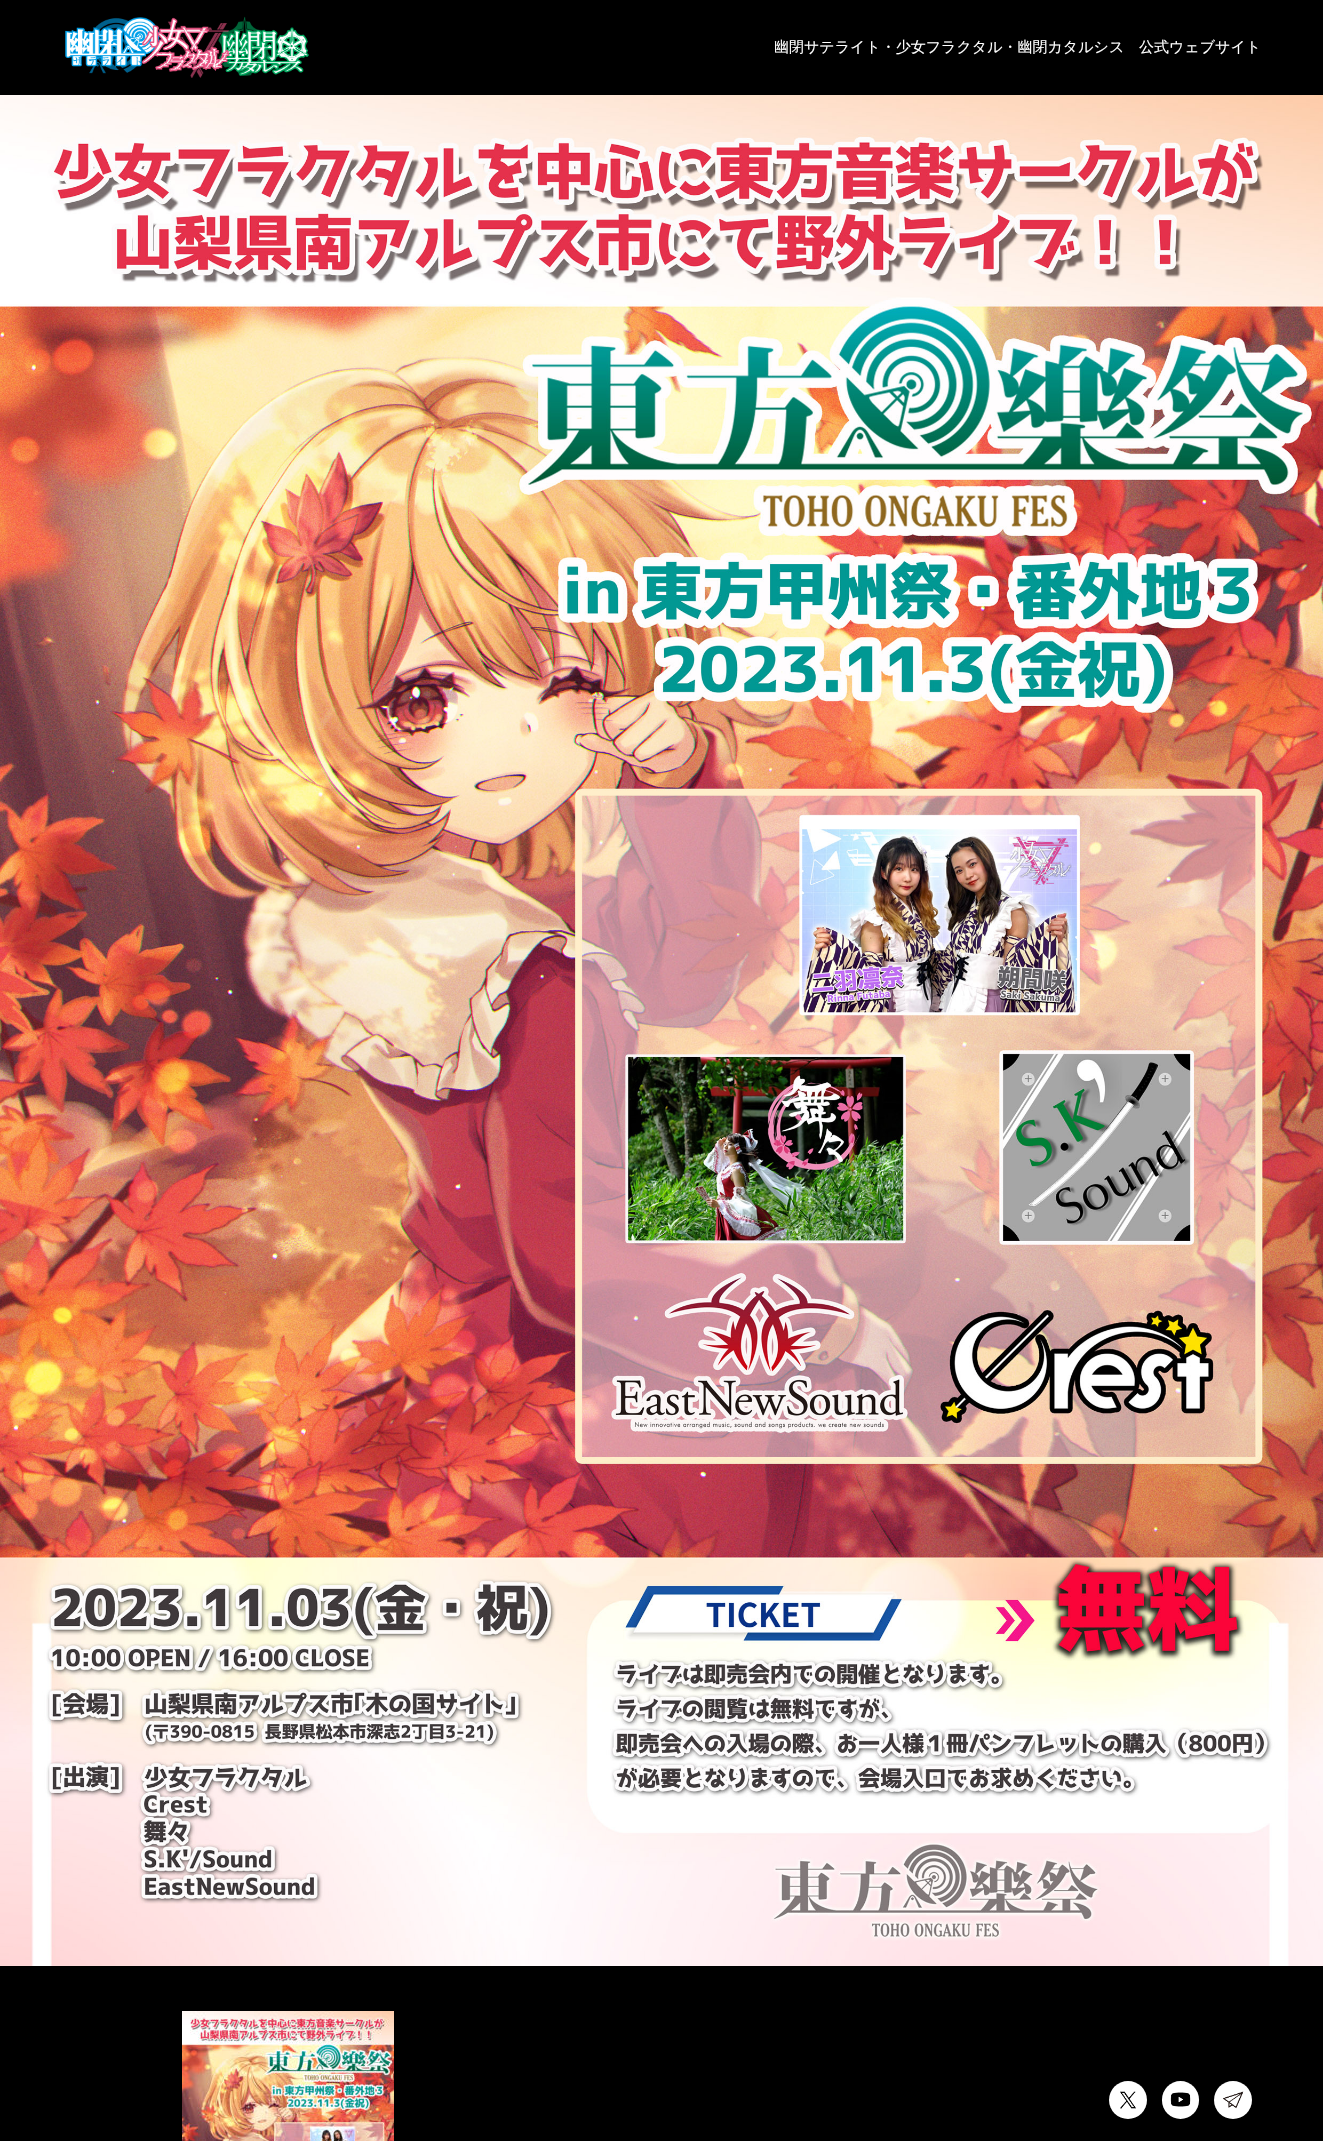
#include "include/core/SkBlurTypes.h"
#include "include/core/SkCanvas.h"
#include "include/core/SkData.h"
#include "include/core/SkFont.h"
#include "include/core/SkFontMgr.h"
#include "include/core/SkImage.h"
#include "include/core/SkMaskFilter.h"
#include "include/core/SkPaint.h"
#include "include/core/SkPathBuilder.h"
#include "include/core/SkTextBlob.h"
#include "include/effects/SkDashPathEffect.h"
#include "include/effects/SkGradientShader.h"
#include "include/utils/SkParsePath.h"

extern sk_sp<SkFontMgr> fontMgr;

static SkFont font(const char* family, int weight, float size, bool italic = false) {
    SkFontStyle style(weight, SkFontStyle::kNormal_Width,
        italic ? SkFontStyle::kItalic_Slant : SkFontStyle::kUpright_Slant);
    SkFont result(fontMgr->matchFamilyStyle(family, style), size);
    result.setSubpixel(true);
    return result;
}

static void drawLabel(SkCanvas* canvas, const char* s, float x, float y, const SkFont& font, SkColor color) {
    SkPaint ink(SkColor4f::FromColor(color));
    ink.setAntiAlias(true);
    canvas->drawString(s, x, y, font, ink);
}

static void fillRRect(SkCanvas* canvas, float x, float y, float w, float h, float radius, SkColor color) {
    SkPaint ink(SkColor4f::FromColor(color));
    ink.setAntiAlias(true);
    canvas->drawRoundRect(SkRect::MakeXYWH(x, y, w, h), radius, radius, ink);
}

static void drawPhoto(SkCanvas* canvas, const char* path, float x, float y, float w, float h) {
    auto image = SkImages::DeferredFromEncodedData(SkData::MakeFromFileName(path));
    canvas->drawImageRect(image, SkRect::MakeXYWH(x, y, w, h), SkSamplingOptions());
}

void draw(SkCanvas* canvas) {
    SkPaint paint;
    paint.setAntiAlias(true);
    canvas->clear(0xFF000000);
    drawPhoto(canvas, "assets/img1.png", 65, 16, 244, 62);
    SkFont font1 = font("WenQuanYi Zen Hei", 500, 15);
    drawLabel(canvas, "幽閉サテライト・少女フラクタル・幽閉カタルシス", 774, 52, font1, 0xFFFFFFFF);
    drawLabel(canvas, "公式ウェブサイト", 1139, 52, font1, 0xFFFFFFFF);
    drawPhoto(canvas, "assets/img2.png", 0, 95, 1323, 1871);
    drawPhoto(canvas, "assets/img3.png", 182, 2011, 212, 130);
    paint.setColor(0xFFFFFFFF);
    canvas->drawCircle(1128, 2100, 19, paint);
    drawPhoto(canvas, "assets/img4.png", 1120, 2091, 16, 18);
    fillRRect(canvas, 1162, 2081, 37, 38, 18.5f, 0xFFFFFFFF);
    drawPhoto(canvas, "assets/img5.png", 1170, 2092, 21, 15);
    canvas->drawCircle(1233, 2100, 19, paint);
    drawPhoto(canvas, "assets/img6.png", 1223, 2091, 21, 18);
}
